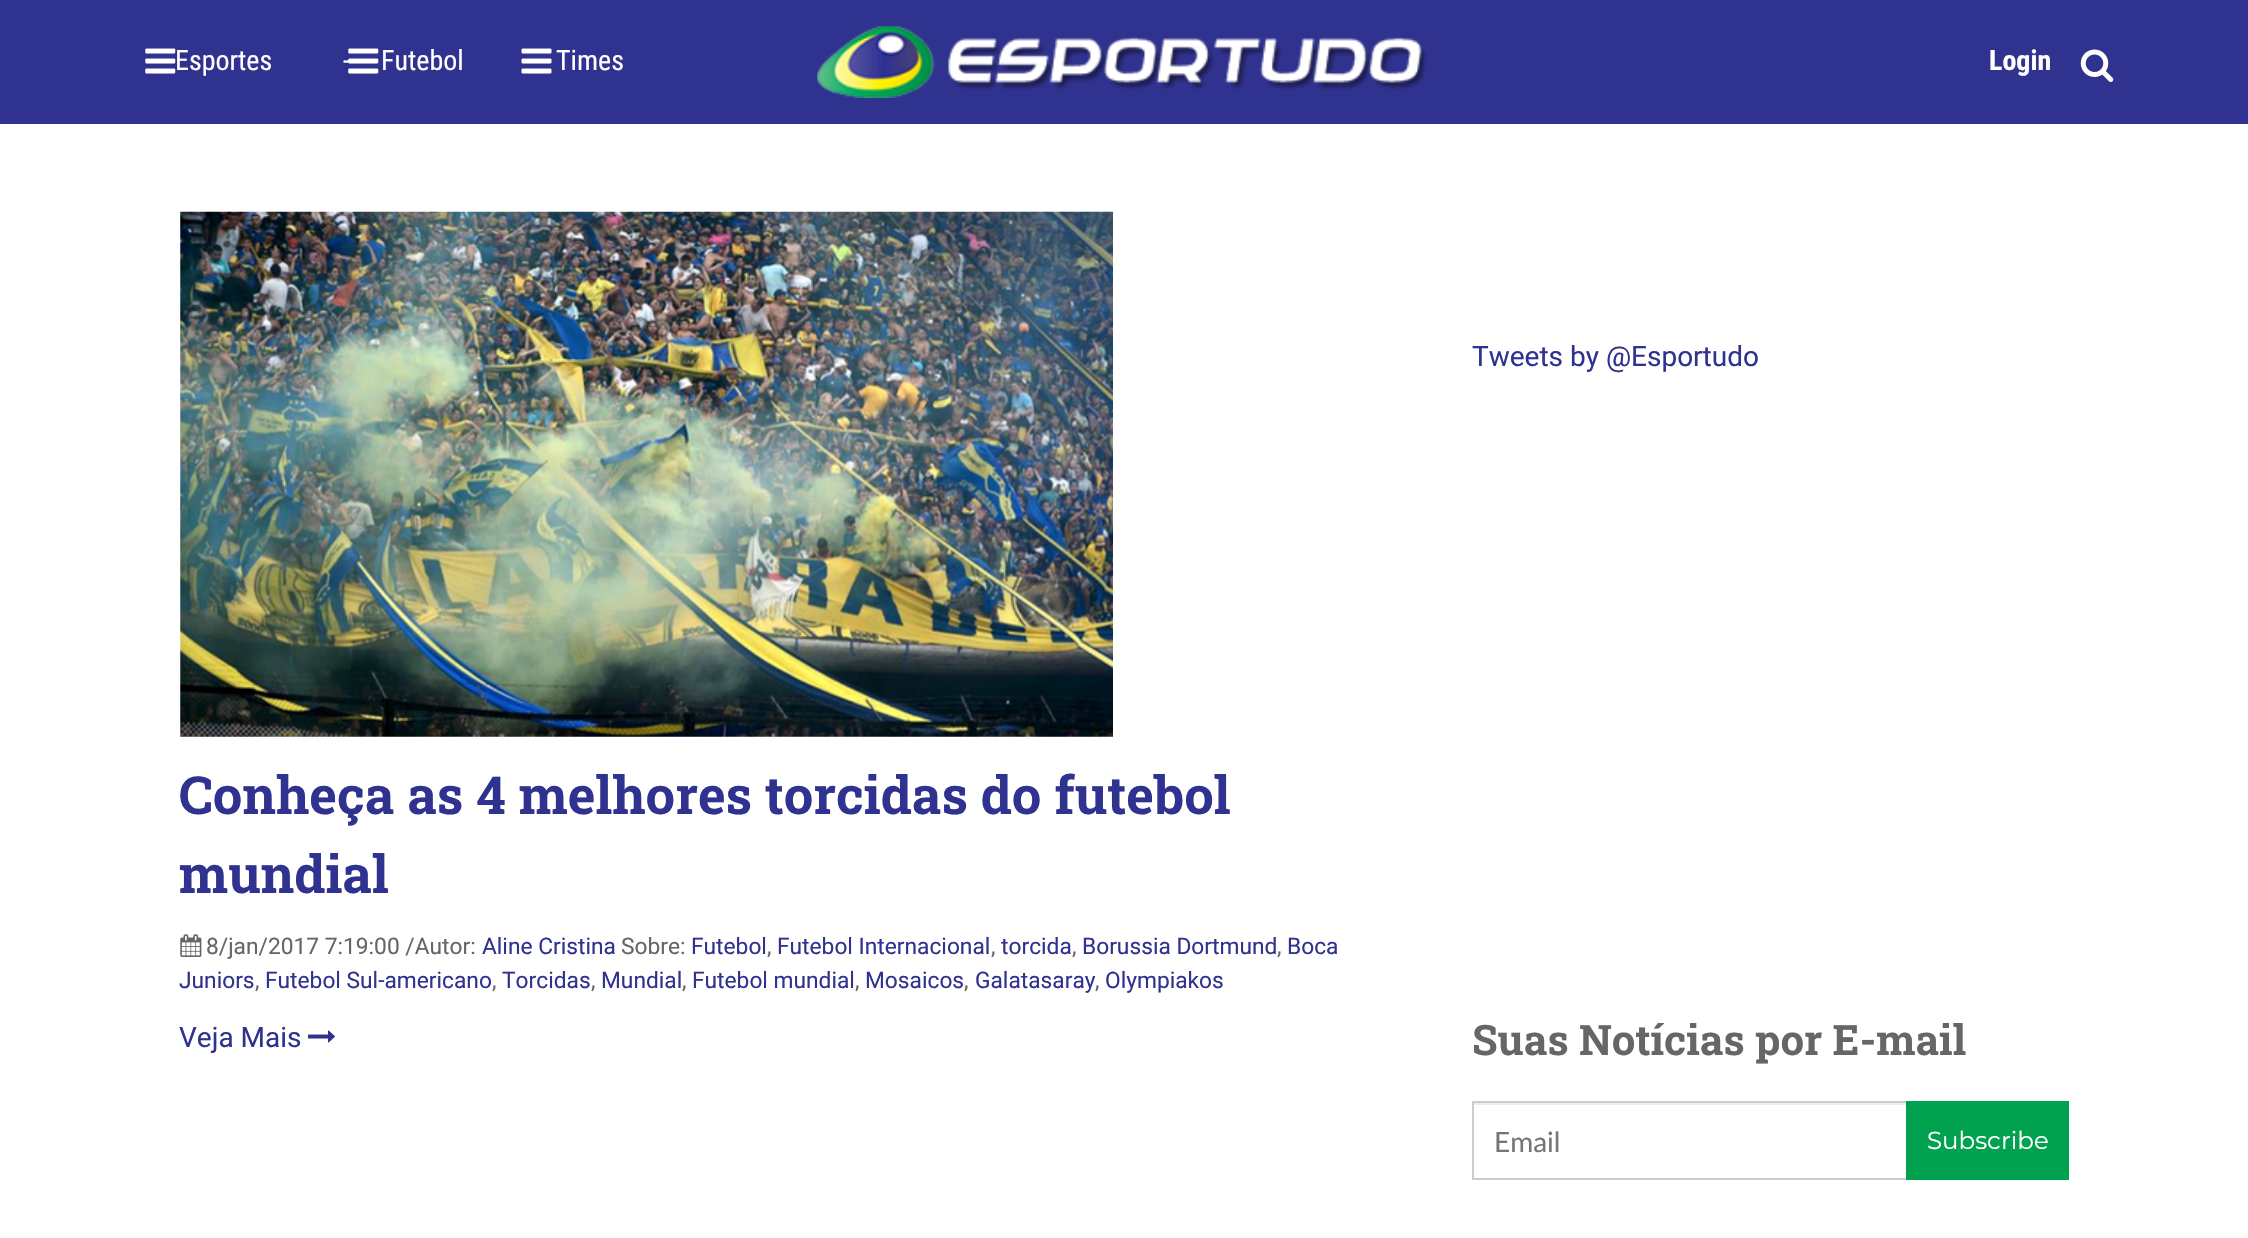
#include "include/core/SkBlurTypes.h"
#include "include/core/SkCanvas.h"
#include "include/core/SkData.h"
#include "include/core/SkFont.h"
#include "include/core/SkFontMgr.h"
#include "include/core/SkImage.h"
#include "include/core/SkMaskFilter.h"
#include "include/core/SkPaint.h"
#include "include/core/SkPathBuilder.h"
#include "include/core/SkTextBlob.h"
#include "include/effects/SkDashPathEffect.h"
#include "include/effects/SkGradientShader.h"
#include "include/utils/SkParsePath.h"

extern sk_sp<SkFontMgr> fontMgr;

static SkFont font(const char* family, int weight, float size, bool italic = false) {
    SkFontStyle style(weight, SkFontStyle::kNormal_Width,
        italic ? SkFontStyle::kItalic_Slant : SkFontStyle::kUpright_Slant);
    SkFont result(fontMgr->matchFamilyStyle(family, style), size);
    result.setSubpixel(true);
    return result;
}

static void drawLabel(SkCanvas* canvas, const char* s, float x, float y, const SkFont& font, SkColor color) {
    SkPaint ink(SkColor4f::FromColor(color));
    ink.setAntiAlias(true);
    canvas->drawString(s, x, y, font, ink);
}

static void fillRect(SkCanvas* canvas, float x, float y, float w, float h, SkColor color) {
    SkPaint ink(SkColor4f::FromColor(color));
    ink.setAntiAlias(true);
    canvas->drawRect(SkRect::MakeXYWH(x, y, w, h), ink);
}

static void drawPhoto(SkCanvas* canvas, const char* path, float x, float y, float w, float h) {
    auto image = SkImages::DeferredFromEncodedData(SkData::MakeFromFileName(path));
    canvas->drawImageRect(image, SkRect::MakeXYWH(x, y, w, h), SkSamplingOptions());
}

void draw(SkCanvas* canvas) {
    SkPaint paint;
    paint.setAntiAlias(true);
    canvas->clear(0xFFFFFFFF);
    fillRect(canvas, 0, 0, 2248, 124, 0xFF30328F);
    drawPhoto(canvas, "assets/img1.png", 145, 48, 31, 26);
    SkFont font1 = font("Roboto Condensed", 400, 28);
    drawLabel(canvas, "Esportes", 175, 70, font1, 0xFFFFFFFF);
    drawLabel(canvas, "-", 343, 70, font1, 0xFFFFFFFF);
    drawPhoto(canvas, "assets/img2.png", 348, 48, 31, 26);
    drawLabel(canvas, "Futebol", 381, 70, font1, 0xFFFFFFFF);
    drawPhoto(canvas, "assets/img3.png", 521, 48, 31, 26);
    drawLabel(canvas, "Times", 556, 70, font1, 0xFFFFFFFF);
    drawPhoto(canvas, "assets/img4.png", 817, 26, 610, 72);
    SkFont font2 = font("Roboto Condensed", 700, 28);
    drawLabel(canvas, "Login", 1989, 70, font2, 0xFFFFFFFF);
    drawPhoto(canvas, "assets/img5.png", 2080, 49, 34, 33);
    drawPhoto(canvas, "assets/img6.png", 180, 211, 933, 526);
    SkFont font3 = font("Roboto Slab", 700, 52.5f);
    drawLabel(canvas, "Conheça as 4 melhores torcidas do futebol", 179, 814, font3, 0xFF30328F);
    drawLabel(canvas, "mundial", 179, 893, font3, 0xFF30328F);
    drawPhoto(canvas, "assets/img7.png", 180, 934, 22, 23);
    SkFont font4 = font("Roboto", 400, 22.75f);
    drawLabel(canvas, "8/jan/2017 7:19:00 /Autor:", 206, 954, font4, 0xFF666666);
    drawLabel(canvas, "Aline Cristina", 482, 954, font4, 0xFF30328F);
    drawLabel(canvas, "Sobre:", 621, 954, font4, 0xFF666666);
    drawLabel(canvas, "Futebol", 691, 954, font4, 0xFF30328F);
    drawLabel(canvas, ",", 767, 954, font4, 0xFF666666);
    drawLabel(canvas, "Futebol Internacional", 777, 954, font4, 0xFF30328F);
    drawLabel(canvas, ",", 991, 954, font4, 0xFF666666);
    drawLabel(canvas, "torcida", 1001, 954, font4, 0xFF30328F);
    drawLabel(canvas, ",", 1072, 954, font4, 0xFF666666);
    drawLabel(canvas, "Borussia Dortmund", 1082, 954, font4, 0xFF30328F);
    drawLabel(canvas, ",", 1277, 954, font4, 0xFF666666);
    drawLabel(canvas, "Boca", 1287, 954, font4, 0xFF30328F);
    drawLabel(canvas, "Juniors", 179, 988, font4, 0xFF30328F);
    drawLabel(canvas, ",", 255, 988, font4, 0xFF666666);
    drawLabel(canvas, "Futebol Sul-americano", 265, 988, font4, 0xFF30328F);
    drawLabel(canvas, ",", 492, 988, font4, 0xFF666666);
    drawLabel(canvas, "Torcidas", 502, 988, font4, 0xFF30328F);
    drawLabel(canvas, ",", 591, 988, font4, 0xFF666666);
    drawLabel(canvas, "Mundial", 601, 988, font4, 0xFF30328F);
    drawLabel(canvas, ",", 682, 988, font4, 0xFF666666);
    drawLabel(canvas, "Futebol mundial", 692, 988, font4, 0xFF30328F);
    drawLabel(canvas, ",", 855, 988, font4, 0xFF666666);
    drawLabel(canvas, "Mosaicos", 865, 988, font4, 0xFF30328F);
    drawLabel(canvas, ",", 964, 988, font4, 0xFF666666);
    drawLabel(canvas, "Galatasaray", 975, 988, font4, 0xFF30328F);
    drawLabel(canvas, ",", 1095, 988, font4, 0xFF666666);
    drawLabel(canvas, "Olympiakos", 1105, 988, font4, 0xFF30328F);
    SkFont font5 = font("Roboto", 400, 28);
    drawLabel(canvas, "Veja Mais", 179, 1047, font5, 0xFF30328F);
    drawPhoto(canvas, "assets/img8.png", 308, 1030, 27, 13);
    drawLabel(canvas, "Tweets by @Esportudo", 1472, 366, font5, 0xFF30328F);
    SkFont font6 = font("Roboto Slab", 700, 42);
    drawLabel(canvas, "Suas Notícias por E-mail", 1472, 1055, font6, 0xFF666666);
    fillRect(canvas, 1474, 1103, 432, 2, 0xFFECECEC);
    paint.setStroke(true);
    paint.setStrokeWidth(2);
    paint.setColor(0xFFCCCCCC);
    canvas->drawRect(SkRect::MakeXYWH(1473, 1102, 595, 77), paint);
    SkFont font7 = font("Lato", 400, 28);
    drawLabel(canvas, "Email", 1494, 1152, font7, 0xFF757575);
    fillRect(canvas, 1906, 1101, 163, 79, 0xFF00A250);
    SkFont font8 = font("Montserrat", 400, 24.5f);
    drawLabel(canvas, "Subscribe", 1927, 1149, font8, 0xFFFFFFFF);
}
